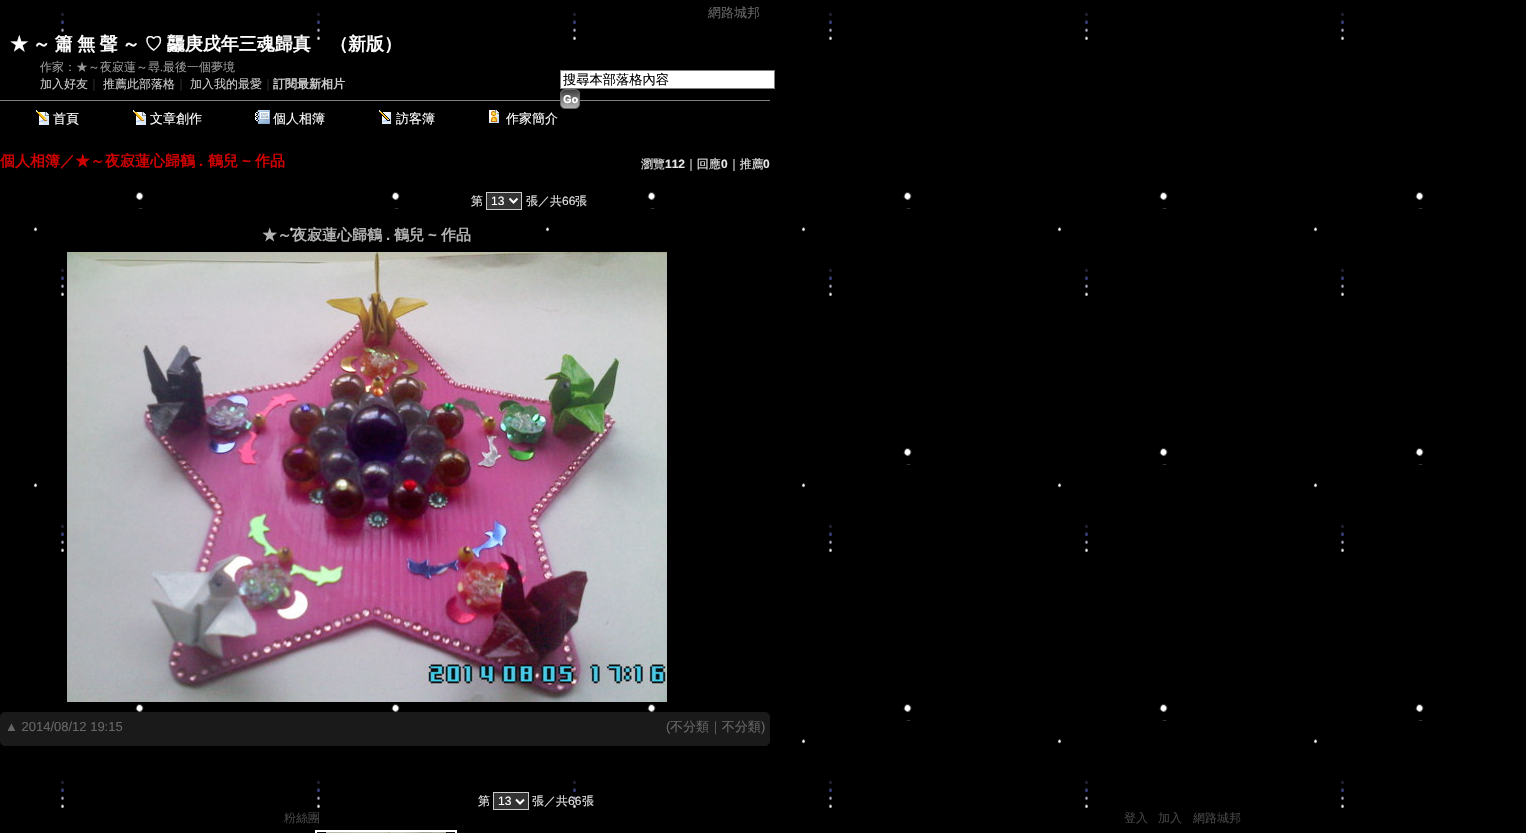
#include "include/core/SkBlurTypes.h"
#include "include/core/SkCanvas.h"
#include "include/core/SkData.h"
#include "include/core/SkFont.h"
#include "include/core/SkFontMgr.h"
#include "include/core/SkImage.h"
#include "include/core/SkMaskFilter.h"
#include "include/core/SkPaint.h"
#include "include/core/SkPathBuilder.h"
#include "include/core/SkTextBlob.h"
#include "include/effects/SkDashPathEffect.h"
#include "include/effects/SkGradientShader.h"
#include "include/utils/SkParsePath.h"

extern sk_sp<SkFontMgr> fontMgr;

static SkFont font(const char* family, int weight, float size, bool italic = false) {
    SkFontStyle style(weight, SkFontStyle::kNormal_Width,
        italic ? SkFontStyle::kItalic_Slant : SkFontStyle::kUpright_Slant);
    SkFont result(fontMgr->matchFamilyStyle(family, style), size);
    result.setSubpixel(true);
    return result;
}

static void drawLabel(SkCanvas* canvas, const char* s, float x, float y, const SkFont& font, SkColor color) {
    SkPaint ink(SkColor4f::FromColor(color));
    ink.setAntiAlias(true);
    canvas->drawString(s, x, y, font, ink);
}

static void drawTracked(SkCanvas* canvas, const char* s, float x, float y, const SkFont& font, const SkPaint& ink, float letter, float word) {
    std::vector<SkGlyphID> glyphs(font.countText(s, strlen(s), SkTextEncoding::kUTF8));
    std::vector<float> xs(glyphs.size());
    font.textToGlyphs(s, strlen(s), SkTextEncoding::kUTF8, glyphs);
    font.getXPos(glyphs, xs, x);
    float extra = 0;
    for (size_t i = 0; i < glyphs.size(); i++) {
        xs[i] += extra;
        extra += letter + word * (glyphs[i] == font.unicharToGlyph(' '));
    }
    canvas->drawTextBlob(SkTextBlob::MakeFromPosHGlyphs(glyphs, xs, y, font), 0, 0, ink);
}

static void fillRect(SkCanvas* canvas, float x, float y, float w, float h, SkColor color) {
    SkPaint ink(SkColor4f::FromColor(color));
    ink.setAntiAlias(true);
    canvas->drawRect(SkRect::MakeXYWH(x, y, w, h), ink);
}

static void drawPhoto(SkCanvas* canvas, const char* path, float x, float y, float w, float h) {
    auto image = SkImages::DeferredFromEncodedData(SkData::MakeFromFileName(path));
    canvas->drawImageRect(image, SkRect::MakeXYWH(x, y, w, h), SkSamplingOptions());
}

static SkPath parsePath(const char* data, bool evenOdd = false) {
    SkPath result = *SkParsePath::FromSVGString(data);
    if (evenOdd) result.setFillType(SkPathFillType::kEvenOdd);
    return result;
}

void draw(SkCanvas* canvas) {
    SkPaint paint;
    paint.setAntiAlias(true);
    canvas->clear(0xFFFFFFFF);
    drawPhoto(canvas, "assets/img1.png", 0, 0, 1526, 833);
    SkFont font1 = font("WenQuanYi Zen Hei", 500, 13);
    drawLabel(canvas, "網路城邦", 708, 17, font1, 0xFF666666);
    SkFont font2 = font("WenQuanYi Zen Hei", 700, 18);
    paint.setColor(0xFFFFFFFF);
    drawTracked(canvas, "★ ～ 簫 無 聲 ～ ♡ 龘庚戌年三魂歸真", 10, 50, font2, paint, 0, -1);
    drawLabel(canvas, "（新版）", 330, 50, font2, 0xFFFFFFFF);
    SkFont font3 = font("WenQuanYi Zen Hei", 500, 12);
    drawLabel(canvas, "作家：★～夜寂蓮～尋", 40, 71, font3, 0xFF999999);
    SkFont font4 = font("Liberation Serif", 400, 12);
    drawLabel(canvas, ".", 160, 71, font4, 0xFF999999);
    drawLabel(canvas, "最後一個夢境", 163, 71, font3, 0xFF999999);
    drawLabel(canvas, "加入好友", 40, 88, font3, 0xFFCCCCCC);
    drawLabel(canvas, "｜", 88, 88, font3, 0xFF333333);
    drawLabel(canvas, "推薦此部落格", 103, 88, font3, 0xFFCCCCCC);
    drawLabel(canvas, "｜", 175, 88, font3, 0xFF333333);
    drawLabel(canvas, "加入我的最愛", 190, 88, font3, 0xFFCCCCCC);
    drawLabel(canvas, "｜", 262, 88, font3, 0xFF333333);
    SkFont font5 = font("WenQuanYi Zen Hei", 700, 12);
    drawLabel(canvas, "訂閱最新相片", 273, 88, font5, 0xFFCCCCCC);
    canvas->drawRect(SkRect::MakeXYWH(560.5f, 70.5f, 214, 18), paint);
    paint.setStroke(true);
    paint.setStrokeWidth(1);
    paint.setColor(0xFF808080);
    canvas->drawRect(SkRect::MakeXYWH(560.5f, 70.5f, 214, 18), paint);
    SkFont font6 = font("WenQuanYi Zen Hei", 500, 13.25f);
    drawLabel(canvas, "搜尋本部落格內容", 563, 84, font6, 0xFF000000);
    fillRect(canvas, 0, 100, 770, 1, 0xFF808080);
    drawPhoto(canvas, "assets/img2.png", 560, 89, 20, 20);
    drawPhoto(canvas, "assets/img3.png", 36, 110, 13, 15);
    drawLabel(canvas, "首頁", 53, 123, font1, 0xFFFFFFFF);
    drawPhoto(canvas, "assets/img3.png", 133, 110, 13, 15);
    drawLabel(canvas, "文章創作", 150, 123, font1, 0xFFFFFFFF);
    drawPhoto(canvas, "assets/img4.png", 255, 110, 15, 14);
    drawLabel(canvas, "個人相簿", 273, 123, font1, 0xFFFFFFFF);
    drawPhoto(canvas, "assets/img5.png", 379, 110, 12, 14);
    drawLabel(canvas, "訪客簿", 396, 123, font1, 0xFFFFFFFF);
    drawPhoto(canvas, "assets/img6.png", 489, 110, 10, 13);
    drawLabel(canvas, "作家簡介", 506, 123, font1, 0xFFFFFFFF);
    SkFont font7 = font("WenQuanYi Zen Hei", 700, 15);
    drawLabel(canvas, "個人相簿／★～夜寂蓮心歸鶴", 0, 166, font7, 0xFFCC0000);
    drawLabel(canvas, "鶴兒", 208, 166, font7, 0xFFCC0000);
    SkFont font8 = font("Liberation Sans", 700, 15);
    drawLabel(canvas, "~", 242, 166, font8, 0xFFCC0000);
    drawLabel(canvas, "作品", 255, 166, font7, 0xFFCC0000);
    drawLabel(canvas, ".", 199, 166, font8, 0xFFCC0000);
    drawLabel(canvas, "瀏覽", 641, 168, font3, 0xFFE5E5E5);
    SkFont font9 = font("Liberation Sans", 700, 12);
    drawLabel(canvas, "112", 665, 168, font9, 0xFFE5E5E5);
    drawLabel(canvas, "｜回應", 685, 168, font3, 0xFFE5E5E5);
    drawLabel(canvas, "0", 721, 168, font9, 0xFFE5E5E5);
    drawLabel(canvas, "｜推薦", 728, 168, font3, 0xFFE5E5E5);
    drawLabel(canvas, "0", 763, 168, font9, 0xFFE5E5E5);
    drawLabel(canvas, "第", 471, 205, font3, 0xFFE5E5E5);
    paint.setStroke(false);
    paint.setColor(0xFF333333);
    canvas->drawRect(SkRect::MakeXYWH(486.5f, 192.5f, 35, 17), paint);
    paint.setStroke(true);
    paint.setColor(0xFFCCCCCC);
    canvas->drawRect(SkRect::MakeXYWH(486.5f, 192.5f, 35, 17), paint);
    paint.setStrokeWidth(2);
    paint.setColor(0xFFFFFFFF);
    canvas->drawPath(parsePath("M509.5 198.5L513.5 202.5L517.5 198.5"), paint);
    SkFont font10 = font("Liberation Sans", 400, 12);
    drawLabel(canvas, "13", 491, 205, font10, 0xFFFFFFFF);
    drawLabel(canvas, "張／共", 526, 205, font3, 0xFFE5E5E5);
    drawLabel(canvas, "66", 562, 205, font10, 0xFFE5E5E5);
    drawLabel(canvas, "張", 575, 205, font3, 0xFFE5E5E5);
    drawLabel(canvas, "★～夜寂蓮心歸鶴", 262, 240, font7, 0xFFB3B3B3);
    drawLabel(canvas, "鶴兒", 394, 240, font7, 0xFFB3B3B3);
    drawLabel(canvas, "~", 428, 240, font8, 0xFFB3B3B3);
    drawLabel(canvas, "作品", 441, 240, font7, 0xFFB3B3B3);
    drawLabel(canvas, ".", 386, 240, font8, 0xFFB3B3B3);
    drawPhoto(canvas, "assets/img7.png", 67, 252, 600, 450);
    drawPhoto(canvas, "assets/img8.png", 0, 712, 5, 5);
    fillRect(canvas, 5, 712, 760, 5, 0xFF1A1A1A);
    drawPhoto(canvas, "assets/img9.png", 765, 712, 5, 5);
    fillRect(canvas, 0, 717, 770, 24, 0xFF1A1A1A);
    SkFont font11 = font("Liberation Sans", 400, 13);
    drawLabel(canvas, "▲ 2014/08/12 19:15", 5, 731, font11, 0xFF666666);
    drawLabel(canvas, "(", 666, 731, font11, 0xFF666666);
    drawLabel(canvas, "不分類｜不分類", 670, 731, font1, 0xFF666666);
    drawLabel(canvas, ")", 761, 731, font11, 0xFF666666);
    drawPhoto(canvas, "assets/img10.png", 0, 741, 5, 5);
    fillRect(canvas, 5, 741, 760, 5, 0xFF1A1A1A);
    drawPhoto(canvas, "assets/img11.png", 765, 741, 5, 5);
    drawLabel(canvas, "第", 478, 805, font3, 0xFFE5E5E5);
    paint.setStroke(false);
    paint.setColor(0xFF333333);
    canvas->drawRect(SkRect::MakeXYWH(493.5f, 792.5f, 35, 17), paint);
    paint.setStroke(true);
    paint.setStrokeWidth(1);
    paint.setColor(0xFFCCCCCC);
    canvas->drawRect(SkRect::MakeXYWH(493.5f, 792.5f, 35, 17), paint);
    paint.setStrokeWidth(2);
    paint.setColor(0xFFFFFFFF);
    canvas->drawPath(parsePath("M516 799.5L520 803.5L524 799.5"), paint);
    drawLabel(canvas, "13", 498, 805, font10, 0xFFFFFFFF);
    drawLabel(canvas, "張／共", 532, 805, font3, 0xFFE5E5E5);
    drawLabel(canvas, "66", 568, 805, font10, 0xFFE5E5E5);
    drawLabel(canvas, "張", 582, 805, font3, 0xFFE5E5E5);
    canvas->drawRect(SkRect::MakeXYWH(316, 831, 140, 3), paint);
    drawPhoto(canvas, "assets/img12.png", 326, 832, 120, 1);
    drawLabel(canvas, "粉絲團", 284, 822, font3, 0xFF444444);
    drawLabel(canvas, "登入", 1124, 822, font3, 0xFF444444);
    drawLabel(canvas, "加入", 1158, 822, font3, 0xFF444444);
    drawLabel(canvas, "網路城邦", 1193, 822, font3, 0xFF444444);
}
